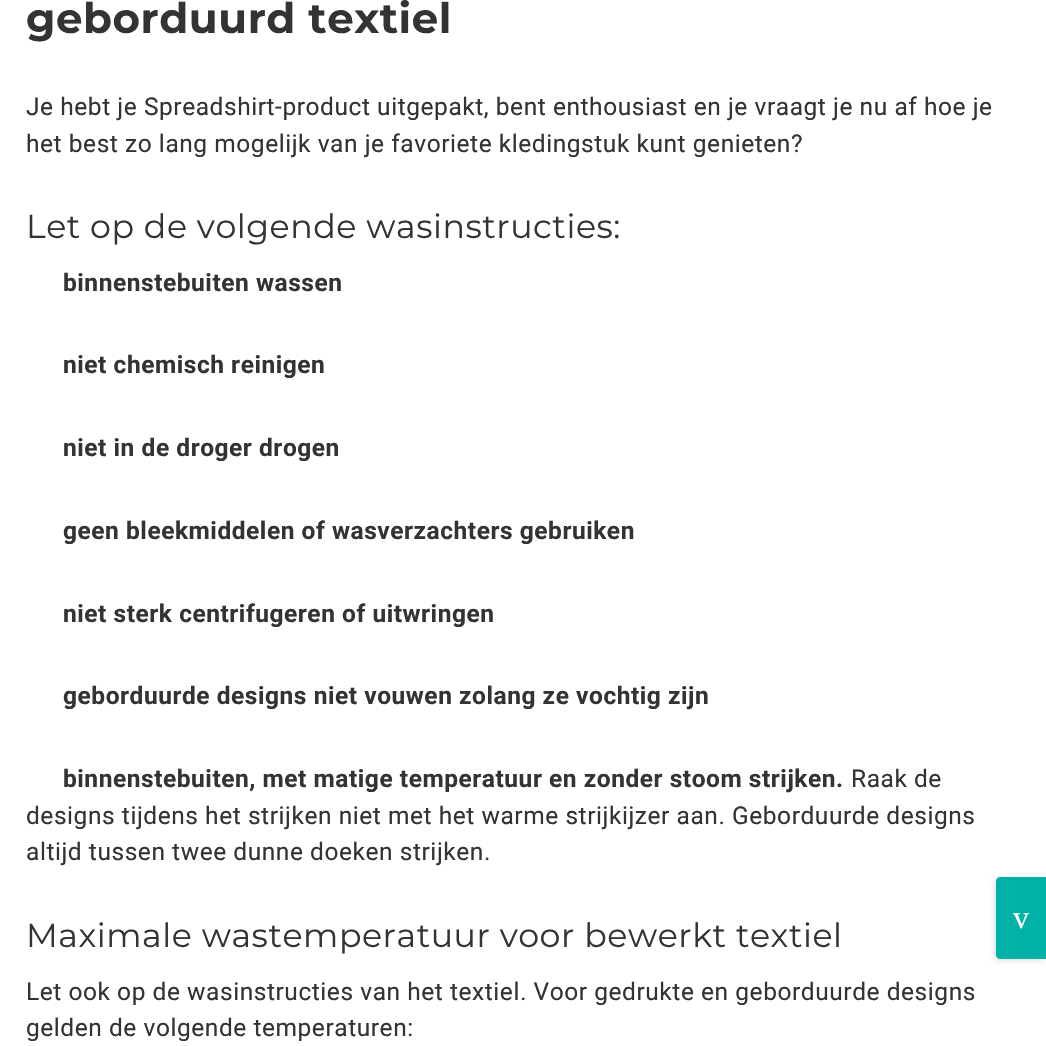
#include "include/core/SkBlurTypes.h"
#include "include/core/SkCanvas.h"
#include "include/core/SkData.h"
#include "include/core/SkFont.h"
#include "include/core/SkFontMgr.h"
#include "include/core/SkImage.h"
#include "include/core/SkMaskFilter.h"
#include "include/core/SkPaint.h"
#include "include/core/SkPathBuilder.h"
#include "include/core/SkTextBlob.h"
#include "include/effects/SkDashPathEffect.h"
#include "include/effects/SkGradientShader.h"
#include "include/utils/SkParsePath.h"

extern sk_sp<SkFontMgr> fontMgr;

static SkFont font(const char* family, int weight, float size, bool italic = false) {
    SkFontStyle style(weight, SkFontStyle::kNormal_Width,
        italic ? SkFontStyle::kItalic_Slant : SkFontStyle::kUpright_Slant);
    SkFont result(fontMgr->matchFamilyStyle(family, style), size);
    result.setSubpixel(true);
    return result;
}

static void drawTracked(SkCanvas* canvas, const char* s, float x, float y, const SkFont& font, const SkPaint& ink, float letter, float word) {
    std::vector<SkGlyphID> glyphs(font.countText(s, strlen(s), SkTextEncoding::kUTF8));
    std::vector<float> xs(glyphs.size());
    font.textToGlyphs(s, strlen(s), SkTextEncoding::kUTF8, glyphs);
    font.getXPos(glyphs, xs, x);
    float extra = 0;
    for (size_t i = 0; i < glyphs.size(); i++) {
        xs[i] += extra;
        extra += letter + word * (glyphs[i] == font.unicharToGlyph(' '));
    }
    canvas->drawTextBlob(SkTextBlob::MakeFromPosHGlyphs(glyphs, xs, y, font), 0, 0, ink);
}

static SkPath parsePath(const char* data, bool evenOdd = false) {
    SkPath result = *SkParsePath::FromSVGString(data);
    if (evenOdd) result.setFillType(SkPathFillType::kEvenOdd);
    return result;
}

void draw(SkCanvas* canvas) {
    SkPaint paint;
    paint.setAntiAlias(true);
    canvas->clear(0xFFFFFFFF);
    SkFont font1 = font("Montserrat", 700, 42);
    paint.setColor(0xFF333333);
    drawTracked(canvas, "geborduurd textiel", 26, 33, font1, paint, 0.55f, 0);
    SkFont font2 = font("Roboto", 400, 24.5f);
    drawTracked(canvas, "Je hebt je Spreadshirt-product uitgepakt, bent enthousiast en je vraagt je nu af hoe je", 26, 115, font2, paint, 0.55f, 0);
    drawTracked(canvas, "het best zo lang mogelijk van je favoriete kledingstuk kunt genieten?", 26, 152, font2, paint, 0.55f, 0);
    SkFont font3 = font("Montserrat", 400, 33.25f);
    drawTracked(canvas, "Let op de volgende wasinstructies:", 26, 238, font3, paint, 0.55f, 0);
    SkFont font4 = font("Roboto", 700, 24.5f);
    drawTracked(canvas, "binnenstebuiten wassen", 63, 291, font4, paint, 0.55f, 0);
    drawTracked(canvas, "niet chemisch reinigen", 63, 373, font4, paint, 0.55f, 0);
    drawTracked(canvas, "niet in de droger drogen", 63, 456, font4, paint, 0.55f, 0);
    drawTracked(canvas, "geen bleekmiddelen of wasverzachters gebruiken", 63, 539, font4, paint, 0.55f, 0);
    drawTracked(canvas, "niet sterk centrifugeren of uitwringen", 63, 622, font4, paint, 0.55f, 0);
    drawTracked(canvas, "geborduurde designs niet vouwen zolang ze vochtig zijn", 63, 704, font4, paint, 0.55f, 0);
    drawTracked(canvas, "binnenstebuiten, met matige temperatuur en zonder stoom strijken.", 63, 787, font4, paint, 0.55f, 0);
    drawTracked(canvas, "Raak de", 851, 787, font2, paint, 0.55f, 0);
    drawTracked(canvas, "designs tijdens het strijken niet met het warme strijkijzer aan. Geborduurde designs", 26, 824, font2, paint, 0.55f, 0);
    drawTracked(canvas, "altijd tussen twee dunne doeken strijken.", 26, 860, font2, paint, 0.55f, 0);
    drawTracked(canvas, "Maximale wastemperatuur voor bewerkt textiel", 26, 947, font3, paint, 0.55f, 0);
    drawTracked(canvas, "Let ook op de wasinstructies van het textiel. Voor gedrukte en geborduurde designs", 26, 1000, font2, paint, 0.55f, 0);
    drawTracked(canvas, "gelden de volgende temperaturen:", 26, 1036, font2, paint, 0.55f, 0);
    paint.setColor(0x33000000);
    paint.setMaskFilter(SkMaskFilter::MakeBlur(kNormal_SkBlurStyle, 3.5f));
    canvas->drawRoundRect(SkRect::MakeXYWH(996, 880, 47, 79), 2, 2, paint);
    paint.setMaskFilter(nullptr);
    paint.setColor(0xFF00B2A6);
    canvas->drawPath(parsePath("M1000 877H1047V959H1000C998 959 996 957 996 955V881C996 879 998 877 1000 877Z"), paint);
    SkFont font5 = font("Liberation Serif", 400, 32);
    paint.setColor(0xFFFFFFFF);
    drawTracked(canvas, "v", 1013, 928, font5, paint, 0.55f, 0);
}
